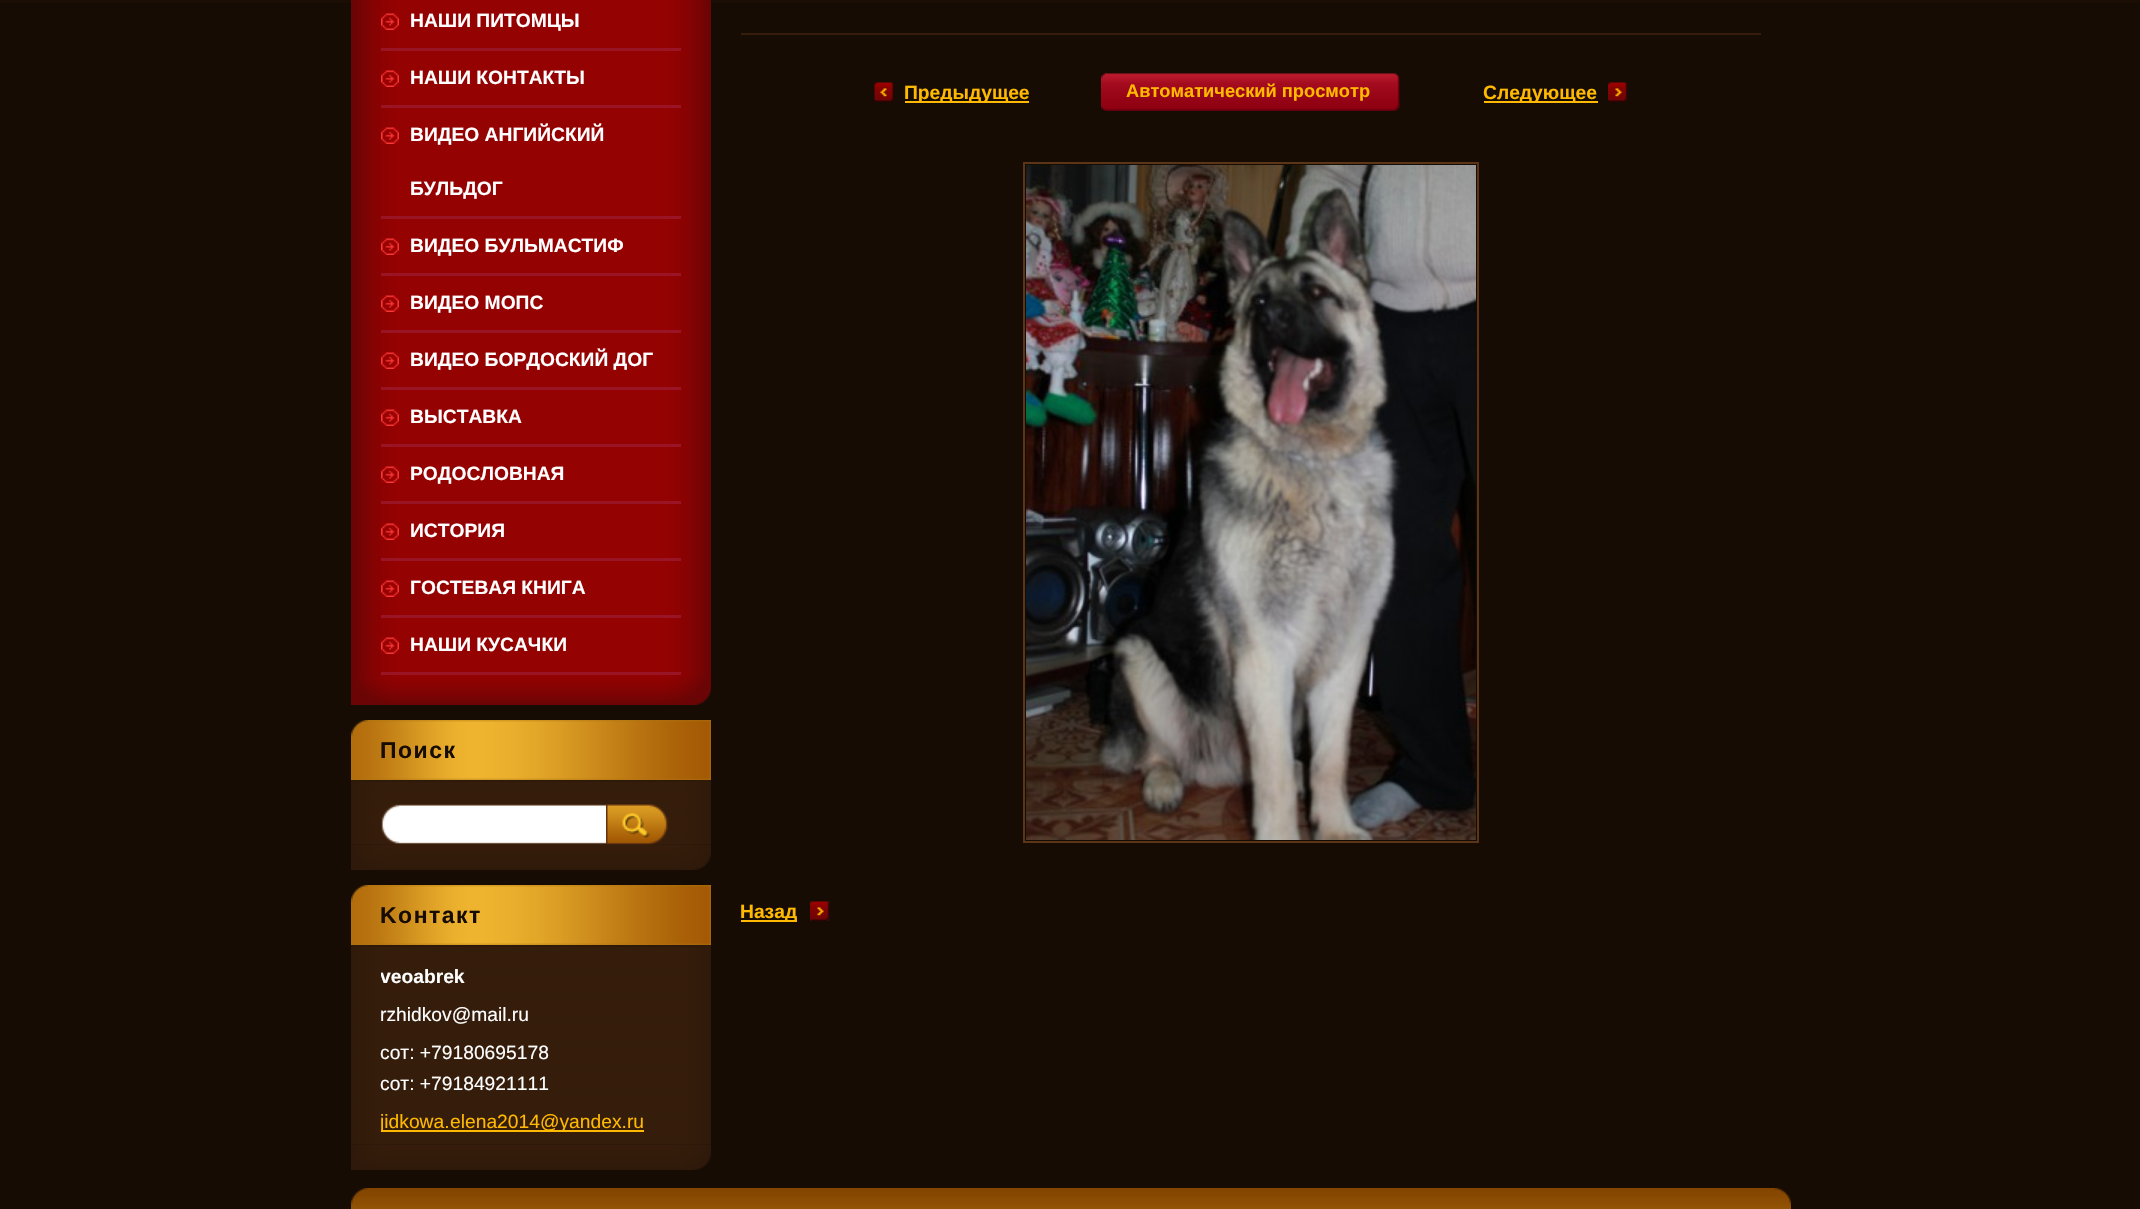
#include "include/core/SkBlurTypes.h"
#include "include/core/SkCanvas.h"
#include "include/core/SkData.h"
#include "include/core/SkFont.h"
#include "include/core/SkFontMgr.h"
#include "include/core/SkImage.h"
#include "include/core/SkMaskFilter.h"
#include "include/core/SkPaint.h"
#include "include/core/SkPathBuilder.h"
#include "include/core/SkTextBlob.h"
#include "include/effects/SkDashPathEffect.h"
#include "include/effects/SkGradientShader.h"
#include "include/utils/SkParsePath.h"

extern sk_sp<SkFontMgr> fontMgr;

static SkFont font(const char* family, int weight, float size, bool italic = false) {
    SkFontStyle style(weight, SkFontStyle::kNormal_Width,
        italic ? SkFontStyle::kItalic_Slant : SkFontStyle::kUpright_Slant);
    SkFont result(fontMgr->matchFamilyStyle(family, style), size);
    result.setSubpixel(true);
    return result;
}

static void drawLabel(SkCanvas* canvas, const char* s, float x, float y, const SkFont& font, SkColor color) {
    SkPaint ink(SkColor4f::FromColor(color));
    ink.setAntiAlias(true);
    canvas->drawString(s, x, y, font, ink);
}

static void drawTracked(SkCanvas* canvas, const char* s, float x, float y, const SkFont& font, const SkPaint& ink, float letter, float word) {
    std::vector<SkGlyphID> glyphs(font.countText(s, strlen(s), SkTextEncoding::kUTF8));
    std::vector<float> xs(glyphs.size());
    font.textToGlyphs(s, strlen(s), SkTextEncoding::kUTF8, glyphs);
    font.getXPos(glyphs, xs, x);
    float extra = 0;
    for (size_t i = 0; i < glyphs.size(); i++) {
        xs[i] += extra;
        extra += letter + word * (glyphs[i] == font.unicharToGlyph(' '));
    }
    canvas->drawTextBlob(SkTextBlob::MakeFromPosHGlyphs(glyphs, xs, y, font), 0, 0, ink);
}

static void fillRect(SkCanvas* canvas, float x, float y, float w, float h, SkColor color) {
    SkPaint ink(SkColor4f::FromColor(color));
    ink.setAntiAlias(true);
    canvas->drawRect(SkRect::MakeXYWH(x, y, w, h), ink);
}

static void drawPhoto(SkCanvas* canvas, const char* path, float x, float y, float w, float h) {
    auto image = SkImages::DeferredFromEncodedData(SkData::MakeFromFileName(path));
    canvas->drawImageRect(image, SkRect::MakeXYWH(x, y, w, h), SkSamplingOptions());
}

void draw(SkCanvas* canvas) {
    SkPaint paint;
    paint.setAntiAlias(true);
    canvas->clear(0xFF160C04);
    fillRect(canvas, 0, 0, 2140, 3, 0xFF1B0E05);
    drawPhoto(canvas, "assets/img1.png", 351, 675, 360, 30);
    drawPhoto(canvas, "assets/img2.png", 351, 0, 360, 675);
    fillRect(canvas, 381, 48, 300, 3, 0xFF991525);
    drawPhoto(canvas, "assets/img3.png", 381, 13, 18, 17);
    SkFont font1 = font("Liberation Sans", 700, 19.25f);
    drawLabel(canvas, "НАШИ ПИТОМЦЫ", 410, 27, font1, 0xFFFFFFFF);
    fillRect(canvas, 381, 105, 300, 3, 0xFF991525);
    drawPhoto(canvas, "assets/img3.png", 381, 70, 18, 17);
    drawLabel(canvas, "НАШИ КОНТАКТЫ", 410, 84, font1, 0xFFFFFFFF);
    fillRect(canvas, 381, 216, 300, 3, 0xFF991525);
    drawPhoto(canvas, "assets/img3.png", 381, 127, 18, 17);
    drawLabel(canvas, "ВИДЕО АНГИЙСКИЙ", 410, 141, font1, 0xFFFFFFFF);
    drawLabel(canvas, "БУЛЬДОГ", 410, 195, font1, 0xFFFFFFFF);
    fillRect(canvas, 381, 273, 300, 3, 0xFF991525);
    drawPhoto(canvas, "assets/img3.png", 381, 238, 18, 17);
    drawLabel(canvas, "ВИДЕО БУЛЬМАСТИФ", 410, 252, font1, 0xFFFFFFFF);
    fillRect(canvas, 381, 330, 300, 3, 0xFF991525);
    drawPhoto(canvas, "assets/img3.png", 381, 295, 18, 17);
    drawLabel(canvas, "ВИДЕО МОПС", 410, 309, font1, 0xFFFFFFFF);
    fillRect(canvas, 381, 387, 300, 3, 0xFF991525);
    drawPhoto(canvas, "assets/img3.png", 381, 352, 18, 17);
    drawLabel(canvas, "ВИДЕО БОРДОСКИЙ ДОГ", 410, 366, font1, 0xFFFFFFFF);
    fillRect(canvas, 381, 444, 300, 3, 0xFF991525);
    drawPhoto(canvas, "assets/img3.png", 381, 409, 18, 17);
    drawLabel(canvas, "ВЫСТАВКА", 410, 423, font1, 0xFFFFFFFF);
    fillRect(canvas, 381, 501, 300, 3, 0xFF991525);
    drawPhoto(canvas, "assets/img3.png", 381, 466, 18, 17);
    drawLabel(canvas, "РОДОСЛОВНАЯ", 410, 480, font1, 0xFFFFFFFF);
    fillRect(canvas, 381, 558, 300, 3, 0xFF991525);
    drawPhoto(canvas, "assets/img3.png", 381, 523, 18, 17);
    drawLabel(canvas, "ИСТОРИЯ", 410, 537, font1, 0xFFFFFFFF);
    fillRect(canvas, 381, 615, 300, 3, 0xFF991525);
    drawPhoto(canvas, "assets/img3.png", 381, 580, 18, 17);
    drawLabel(canvas, "ГОСТЕВАЯ КНИГА", 410, 594, font1, 0xFFFFFFFF);
    fillRect(canvas, 381, 672, 300, 3, 0xFF991525);
    drawPhoto(canvas, "assets/img3.png", 381, 637, 18, 17);
    drawLabel(canvas, "НАШИ КУСАЧКИ", 410, 651, font1, 0xFFFFFFFF);
    drawPhoto(canvas, "assets/img4.png", 351, 844, 360, 26);
    drawPhoto(canvas, "assets/img5.png", 351, 720, 360, 60);
    SkFont font2 = font("Liberation Sans", 700, 23);
    paint.setColor(0xFF160C04);
    drawTracked(canvas, "Поиск", 380, 758, font2, paint, 1.5f, 0);
    drawPhoto(canvas, "assets/img6.png", 351, 782, 360, 63);
    fillRect(canvas, 351, 780, 360, 2, 0xFF2F1A0A);
    drawPhoto(canvas, "assets/img7.png", 381, 804, 227, 41);
    drawPhoto(canvas, "assets/img8.png", 606, 804, 62, 41);
    drawPhoto(canvas, "assets/img4.png", 351, 1144, 360, 26);
    drawPhoto(canvas, "assets/img5.png", 351, 885, 360, 60);
    drawTracked(canvas, "Koнтакт", 380, 923, font2, paint, 1.5f, 0);
    drawPhoto(canvas, "assets/img9.png", 351, 947, 360, 198);
    fillRect(canvas, 351, 945, 360, 2, 0xFF2F1A0A);
    canvas->save();
    canvas->clipRect(SkRect::MakeXYWH(381, 947, 300, 198));
    drawLabel(canvas, "veoabrek", 380, 983, font1, 0xFFFFFFFF);
    canvas->restore();
    SkFont font3 = font("Liberation Sans", 400, 19.25f);
    drawLabel(canvas, "rzhidkov@mail.ru", 380, 1021, font3, 0xFFFFFFFF);
    drawLabel(canvas, "сот: +79180695178", 380, 1059, font3, 0xFFFFFFFF);
    drawLabel(canvas, "сот: +79184921111", 380, 1090, font3, 0xFFFFFFFF);
    fillRect(canvas, 381, 1130, 263, 2, 0xFFFFB901);
    canvas->save();
    canvas->clipRect(SkRect::MakeXYWH(381, 947, 300, 198));
    drawLabel(canvas, "jidkowa.", 380, 1128, font3, 0xFFFFB901);
    canvas->restore();
    drawLabel(canvas, "elena2014@yandex.ru", 450, 1128, font3, 0xFFFFB901);
    fillRect(canvas, 741, 33, 1020, 2, 0xFF361D0B);
    drawPhoto(canvas, "assets/img10.png", 874, 82, 20, 20);
    fillRect(canvas, 905, 101, 124, 2, 0xFFFFB901);
    drawLabel(canvas, "Предыдущее", 904, 99, font1, 0xFFFFB901);
    drawPhoto(canvas, "assets/img11.png", 1101, 73, 6, 38);
    drawPhoto(canvas, "assets/img12.png", 1105, 73, 295, 38);
    SkFont font4 = font("Liberation Sans", 700, 18.25f);
    drawLabel(canvas, "Aвтоматический просмотр", 1126, 97, font4, 0xFFFFB901);
    drawPhoto(canvas, "assets/img13.png", 1608, 82, 20, 20);
    fillRect(canvas, 1484, 101, 114, 2, 0xFFFFB901);
    drawLabel(canvas, "Следующее", 1483, 99, font1, 0xFFFFB901);
    paint.setStroke(true);
    paint.setStrokeWidth(2);
    paint.setColor(0xFF5B3518);
    canvas->drawRect(SkRect::MakeXYWH(1024, 163, 454, 679), paint);
    drawPhoto(canvas, "assets/img14.png", 1026, 165, 450, 675);
    drawPhoto(canvas, "assets/img15.png", 810, 901, 20, 20);
    fillRect(canvas, 741, 920, 56, 2, 0xFFFFB901);
    drawLabel(canvas, "Назад", 740, 918, font1, 0xFFFFB901);
    drawPhoto(canvas, "assets/img16.png", 351, 1188, 1440, 21);
}
